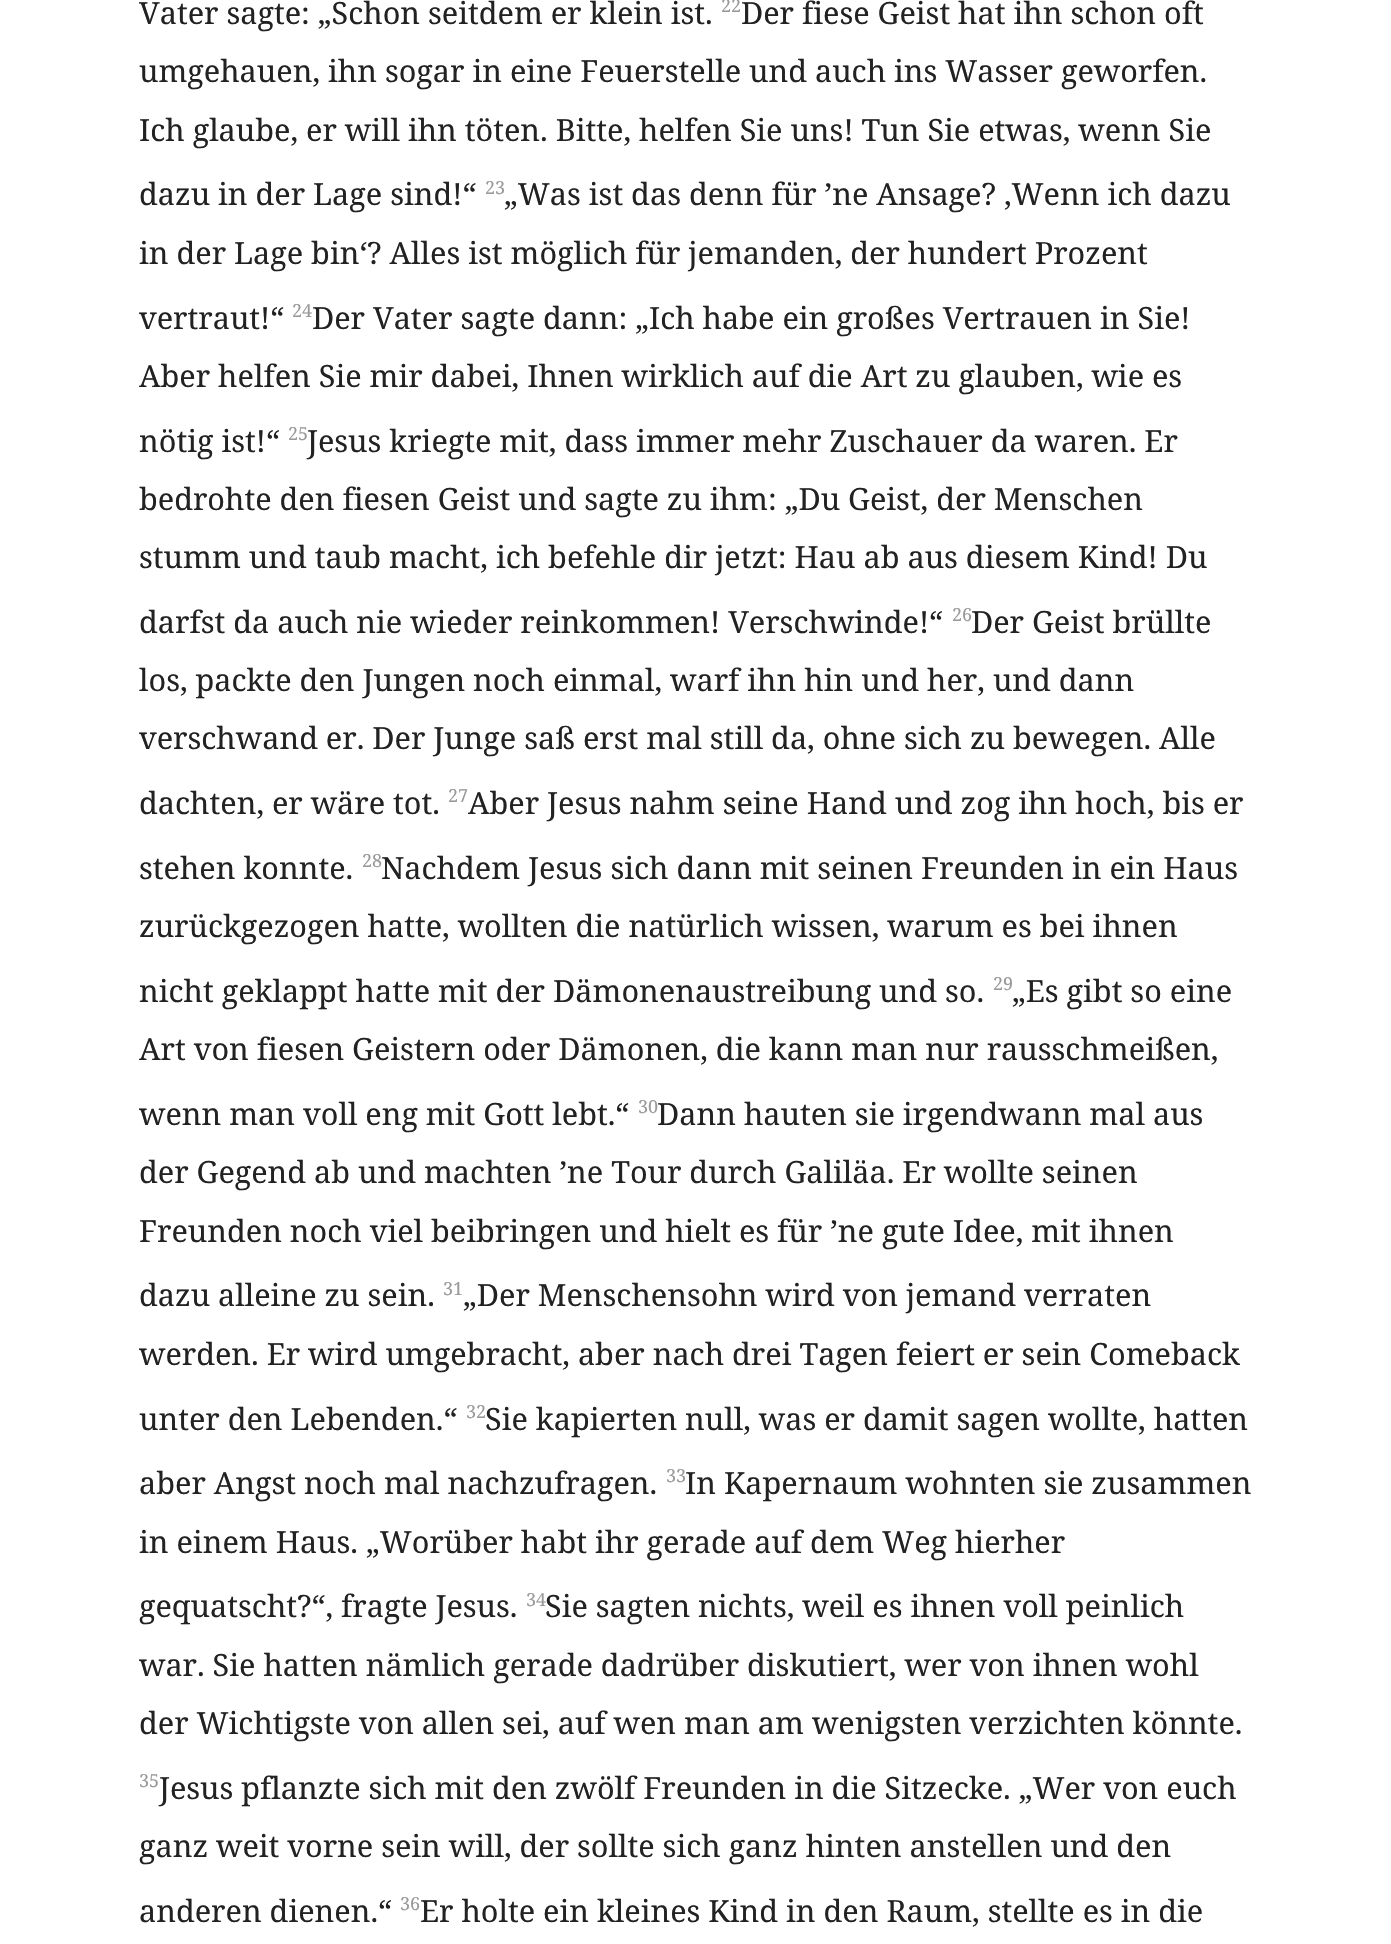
#include "include/core/SkBlurTypes.h"
#include "include/core/SkCanvas.h"
#include "include/core/SkData.h"
#include "include/core/SkFont.h"
#include "include/core/SkFontMgr.h"
#include "include/core/SkImage.h"
#include "include/core/SkMaskFilter.h"
#include "include/core/SkPaint.h"
#include "include/core/SkPathBuilder.h"
#include "include/core/SkTextBlob.h"
#include "include/effects/SkDashPathEffect.h"
#include "include/effects/SkGradientShader.h"
#include "include/utils/SkParsePath.h"

extern sk_sp<SkFontMgr> fontMgr;

static SkFont font(const char* family, int weight, float size, bool italic = false) {
    SkFontStyle style(weight, SkFontStyle::kNormal_Width,
        italic ? SkFontStyle::kItalic_Slant : SkFontStyle::kUpright_Slant);
    SkFont result(fontMgr->matchFamilyStyle(family, style), size);
    result.setSubpixel(true);
    return result;
}

static void drawLabel(SkCanvas* canvas, const char* s, float x, float y, const SkFont& font, SkColor color) {
    SkPaint ink(SkColor4f::FromColor(color));
    ink.setAntiAlias(true);
    canvas->drawString(s, x, y, font, ink);
}

void draw(SkCanvas* canvas) {
    SkPaint paint;
    paint.setAntiAlias(true);
    canvas->clear(0xFFFFFFFF);
    SkFont font1 = font("Noto Serif", 400, 30.6f);
    drawLabel(canvas, "Vater sagte: „Schon seitdem er klein ist.", 139, 24, font1, 0xFF222222);
    SkFont font2 = font("Noto Serif", 400, 18);
    drawLabel(canvas, "22", 721, 12, font2, 0xFF999999);
    drawLabel(canvas, "Der fiese Geist hat ihn schon oft", 741, 24, font1, 0xFF222222);
    drawLabel(canvas, "umgehauen, ihn sogar in eine Feuerstelle und auch ins Wasser geworfen.", 139, 82, font1, 0xFF222222);
    drawLabel(canvas, "Ich glaube, er will ihn töten. Bitte, helfen Sie uns! Tun Sie etwas, wenn Sie", 139, 141, font1, 0xFF222222);
    drawLabel(canvas, "dazu in der Lage sind!“", 139, 205, font1, 0xFF222222);
    drawLabel(canvas, "23", 485, 194, font2, 0xFF999999);
    drawLabel(canvas, "„Was ist das denn für ’ne Ansage? ‚Wenn ich dazu", 504, 205, font1, 0xFF222222);
    drawLabel(canvas, "in der Lage bin‘? Alles ist möglich für jemanden, der hundert Prozent", 139, 264, font1, 0xFF222222);
    drawLabel(canvas, "vertraut!“", 139, 329, font1, 0xFF222222);
    drawLabel(canvas, "24", 292, 317, font2, 0xFF999999);
    drawLabel(canvas, "Der Vater sagte dann: „Ich habe ein großes Vertrauen in Sie!", 312, 329, font1, 0xFF222222);
    drawLabel(canvas, "Aber helfen Sie mir dabei, Ihnen wirklich auf die Art zu glauben, wie es", 139, 387, font1, 0xFF222222);
    drawLabel(canvas, "nötig ist!“", 139, 452, font1, 0xFF222222);
    drawLabel(canvas, "25", 288, 440, font2, 0xFF999999);
    drawLabel(canvas, "Jesus kriegte mit, dass immer mehr Zuschauer da waren. Er", 307, 452, font1, 0xFF222222);
    drawLabel(canvas, "bedrohte den fiesen Geist und sagte zu ihm: „Du Geist, der Menschen", 139, 510, font1, 0xFF222222);
    drawLabel(canvas, "stumm und taub macht, ich befehle dir jetzt: Hau ab aus diesem Kind! Du", 139, 568, font1, 0xFF222222);
    drawLabel(canvas, "darfst da auch nie wieder reinkommen! Verschwinde!“", 139, 633, font1, 0xFF222222);
    drawLabel(canvas, "26", 952, 621, font2, 0xFF999999);
    drawLabel(canvas, "Der Geist brüllte", 971, 633, font1, 0xFF222222);
    drawLabel(canvas, "los, packte den Jungen noch einmal, warf ihn hin und her, und dann", 139, 691, font1, 0xFF222222);
    drawLabel(canvas, "verschwand er. Der Junge saß erst mal still da, ohne sich zu bewegen. Alle", 139, 749, font1, 0xFF222222);
    drawLabel(canvas, "dachten, er wäre tot.", 139, 814, font1, 0xFF222222);
    drawLabel(canvas, "27", 448, 802, font2, 0xFF999999);
    drawLabel(canvas, "Aber Jesus nahm seine Hand und zog ihn hoch, bis er", 468, 814, font1, 0xFF222222);
    drawLabel(canvas, "stehen konnte.", 139, 879, font1, 0xFF222222);
    drawLabel(canvas, "28", 362, 867, font2, 0xFF999999);
    drawLabel(canvas, "Nachdem Jesus sich dann mit seinen Freunden in ein Haus", 381, 879, font1, 0xFF222222);
    drawLabel(canvas, "zurückgezogen hatte, wollten die natürlich wissen, warum es bei ihnen", 139, 937, font1, 0xFF222222);
    drawLabel(canvas, "nicht geklappt hatte mit der Dämonenaustreibung und so.", 139, 1002, font1, 0xFF222222);
    drawLabel(canvas, "29", 993, 990, font2, 0xFF999999);
    drawLabel(canvas, "„Es gibt so eine", 1012, 1002, font1, 0xFF222222);
    drawLabel(canvas, "Art von fiesen Geistern oder Dämonen, die kann man nur rausschmeißen,", 139, 1060, font1, 0xFF222222);
    drawLabel(canvas, "wenn man voll eng mit Gott lebt.“", 139, 1125, font1, 0xFF222222);
    drawLabel(canvas, "30", 638, 1113, font2, 0xFF999999);
    drawLabel(canvas, "Dann hauten sie irgendwann mal aus", 657, 1125, font1, 0xFF222222);
    drawLabel(canvas, "der Gegend ab und machten ’ne Tour durch Galiläa. Er wollte seinen", 139, 1183, font1, 0xFF222222);
    drawLabel(canvas, "Freunden noch viel beibringen und hielt es für ’ne gute Idee, mit ihnen", 139, 1242, font1, 0xFF222222);
    drawLabel(canvas, "dazu alleine zu sein.", 139, 1306, font1, 0xFF222222);
    drawLabel(canvas, "31", 443, 1295, font2, 0xFF999999);
    drawLabel(canvas, "„Der Menschensohn wird von jemand verraten", 463, 1306, font1, 0xFF222222);
    drawLabel(canvas, "werden. Er wird umgebracht, aber nach drei Tagen feiert er sein Comeback", 139, 1365, font1, 0xFF222222);
    drawLabel(canvas, "unter den Lebenden.“", 139, 1430, font1, 0xFF222222);
    drawLabel(canvas, "32", 466, 1418, font2, 0xFF999999);
    drawLabel(canvas, "Sie kapierten null, was er damit sagen wollte, hatten", 485, 1430, font1, 0xFF222222);
    drawLabel(canvas, "aber Angst noch mal nachzufragen.", 139, 1494, font1, 0xFF222222);
    drawLabel(canvas, "33", 666, 1482, font2, 0xFF999999);
    drawLabel(canvas, "In Kapernaum wohnten sie zusammen", 685, 1494, font1, 0xFF222222);
    drawLabel(canvas, "in einem Haus. „Worüber habt ihr gerade auf dem Weg hierher", 139, 1553, font1, 0xFF222222);
    drawLabel(canvas, "gequatscht?“, fragte Jesus.", 139, 1617, font1, 0xFF222222);
    drawLabel(canvas, "34", 526, 1606, font2, 0xFF999999);
    drawLabel(canvas, "Sie sagten nichts, weil es ihnen voll peinlich", 545, 1617, font1, 0xFF222222);
    drawLabel(canvas, "war. Sie hatten nämlich gerade dadrüber diskutiert, wer von ihnen wohl", 139, 1676, font1, 0xFF222222);
    drawLabel(canvas, "der Wichtigste von allen sei, auf wen man am wenigsten verzichten könnte.", 139, 1734, font1, 0xFF222222);
    drawLabel(canvas, "35", 139, 1787, font2, 0xFF999999);
    drawLabel(canvas, "Jesus pflanzte sich mit den zwölf Freunden in die Sitzecke. „Wer von euch", 159, 1799, font1, 0xFF222222);
    drawLabel(canvas, "ganz weit vorne sein will, der sollte sich ganz hinten anstellen und den", 139, 1857, font1, 0xFF222222);
    drawLabel(canvas, "anderen dienen.“", 139, 1922, font1, 0xFF222222);
    drawLabel(canvas, "36", 400, 1910, font2, 0xFF999999);
    drawLabel(canvas, "Er holte ein kleines Kind in den Raum, stellte es in die", 420, 1922, font1, 0xFF222222);
}
